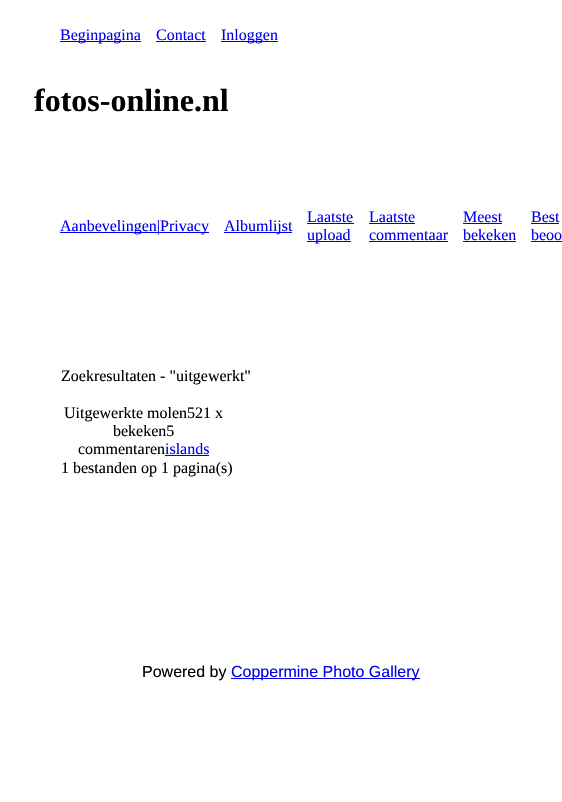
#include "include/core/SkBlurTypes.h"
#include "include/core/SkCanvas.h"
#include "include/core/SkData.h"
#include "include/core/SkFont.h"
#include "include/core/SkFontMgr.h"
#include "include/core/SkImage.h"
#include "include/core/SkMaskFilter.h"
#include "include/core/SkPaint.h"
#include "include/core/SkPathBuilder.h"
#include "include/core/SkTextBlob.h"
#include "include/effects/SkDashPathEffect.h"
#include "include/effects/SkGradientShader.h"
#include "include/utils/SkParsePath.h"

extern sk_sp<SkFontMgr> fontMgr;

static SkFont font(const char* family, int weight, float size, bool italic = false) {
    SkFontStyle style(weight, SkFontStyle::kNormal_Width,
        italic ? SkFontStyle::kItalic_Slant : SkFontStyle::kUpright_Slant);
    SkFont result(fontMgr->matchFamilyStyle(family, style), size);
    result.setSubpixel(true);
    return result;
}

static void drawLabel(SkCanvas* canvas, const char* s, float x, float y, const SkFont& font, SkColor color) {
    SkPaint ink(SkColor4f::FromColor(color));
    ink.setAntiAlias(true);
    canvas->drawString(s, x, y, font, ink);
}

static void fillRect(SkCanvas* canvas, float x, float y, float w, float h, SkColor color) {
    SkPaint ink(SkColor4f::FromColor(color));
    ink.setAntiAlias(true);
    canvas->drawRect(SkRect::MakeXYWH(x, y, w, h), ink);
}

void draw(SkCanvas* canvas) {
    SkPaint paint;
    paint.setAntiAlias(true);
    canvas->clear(0xFFFFFFFF);
    fillRect(canvas, 60, 41, 81, 1, 0xFF0000EE);
    SkFont font1 = font("Liberation Serif", 400, 16);
    drawLabel(canvas, "Beginpagina", 60, 40, font1, 0xFF0000EE);
    drawLabel(canvas, "Contact", 156, 40, font1, 0xFF0000EE);
    fillRect(canvas, 156, 41, 50, 1, 0xFF0000EE);
    fillRect(canvas, 221, 41, 57, 1, 0xFF0000EE);
    drawLabel(canvas, "Inloggen", 221, 40, font1, 0xFF0000EE);
    SkFont font2 = font("Liberation Serif", 700, 32);
    drawLabel(canvas, "fotos-online.nl", 34, 111, font2, 0xFF000000);
    fillRect(canvas, 60, 232, 149, 1, 0xFF0000EE);
    drawLabel(canvas, "Aanbevelingen|Privacy", 60, 231, font1, 0xFF0000EE);
    fillRect(canvas, 224, 232, 68, 1, 0xFF0000EE);
    drawLabel(canvas, "Albumlijst", 224, 231, font1, 0xFF0000EE);
    drawLabel(canvas, "Laatste", 307, 222, font1, 0xFF0000EE);
    fillRect(canvas, 307, 223, 47, 1, 0xFF0000EE);
    fillRect(canvas, 307, 241, 44, 1, 0xFF0000EE);
    drawLabel(canvas, "upload", 307, 240, font1, 0xFF0000EE);
    drawLabel(canvas, "Laatste", 369, 222, font1, 0xFF0000EE);
    fillRect(canvas, 369, 223, 46, 1, 0xFF0000EE);
    drawLabel(canvas, "commentaar", 369, 240, font1, 0xFF0000EE);
    fillRect(canvas, 369, 241, 79, 1, 0xFF0000EE);
    drawLabel(canvas, "Meest", 463, 222, font1, 0xFF0000EE);
    fillRect(canvas, 463, 223, 39, 1, 0xFF0000EE);
    drawLabel(canvas, "bekeken", 463, 240, font1, 0xFF0000EE);
    fillRect(canvas, 463, 241, 53, 1, 0xFF0000EE);
    drawLabel(canvas, "Best", 531, 222, font1, 0xFF0000EE);
    fillRect(canvas, 531, 223, 28, 1, 0xFF0000EE);
    drawLabel(canvas, "beoo", 531, 240, font1, 0xFF0000EE);
    fillRect(canvas, 531, 241, 31, 1, 0xFF0000EE);
    drawLabel(canvas, "Zoekresultaten - \"uitgewerkt\"", 61, 381, font1, 0xFF000000);
    drawLabel(canvas, "Uitgewerkte molen521 x", 64, 418, font1, 0xFF000000);
    drawLabel(canvas, "bekeken5", 113, 436, font1, 0xFF000000);
    drawLabel(canvas, "commentaren", 78, 454, font1, 0xFF000000);
    drawLabel(canvas, "islands", 165, 454, font1, 0xFF0000EE);
    fillRect(canvas, 165, 455, 44, 1, 0xFF0000EE);
    drawLabel(canvas, "1 bestanden op 1 pagina(s)", 61, 473, font1, 0xFF000000);
    SkFont font3 = font("Liberation Sans", 400, 16);
    drawLabel(canvas, "Powered by", 142, 677, font3, 0xFF000000);
    fillRect(canvas, 231, 678, 189, 1, 0xFF0000EE);
    drawLabel(canvas, "Coppermine Photo Gallery", 231, 677, font3, 0xFF0000EE);
}
